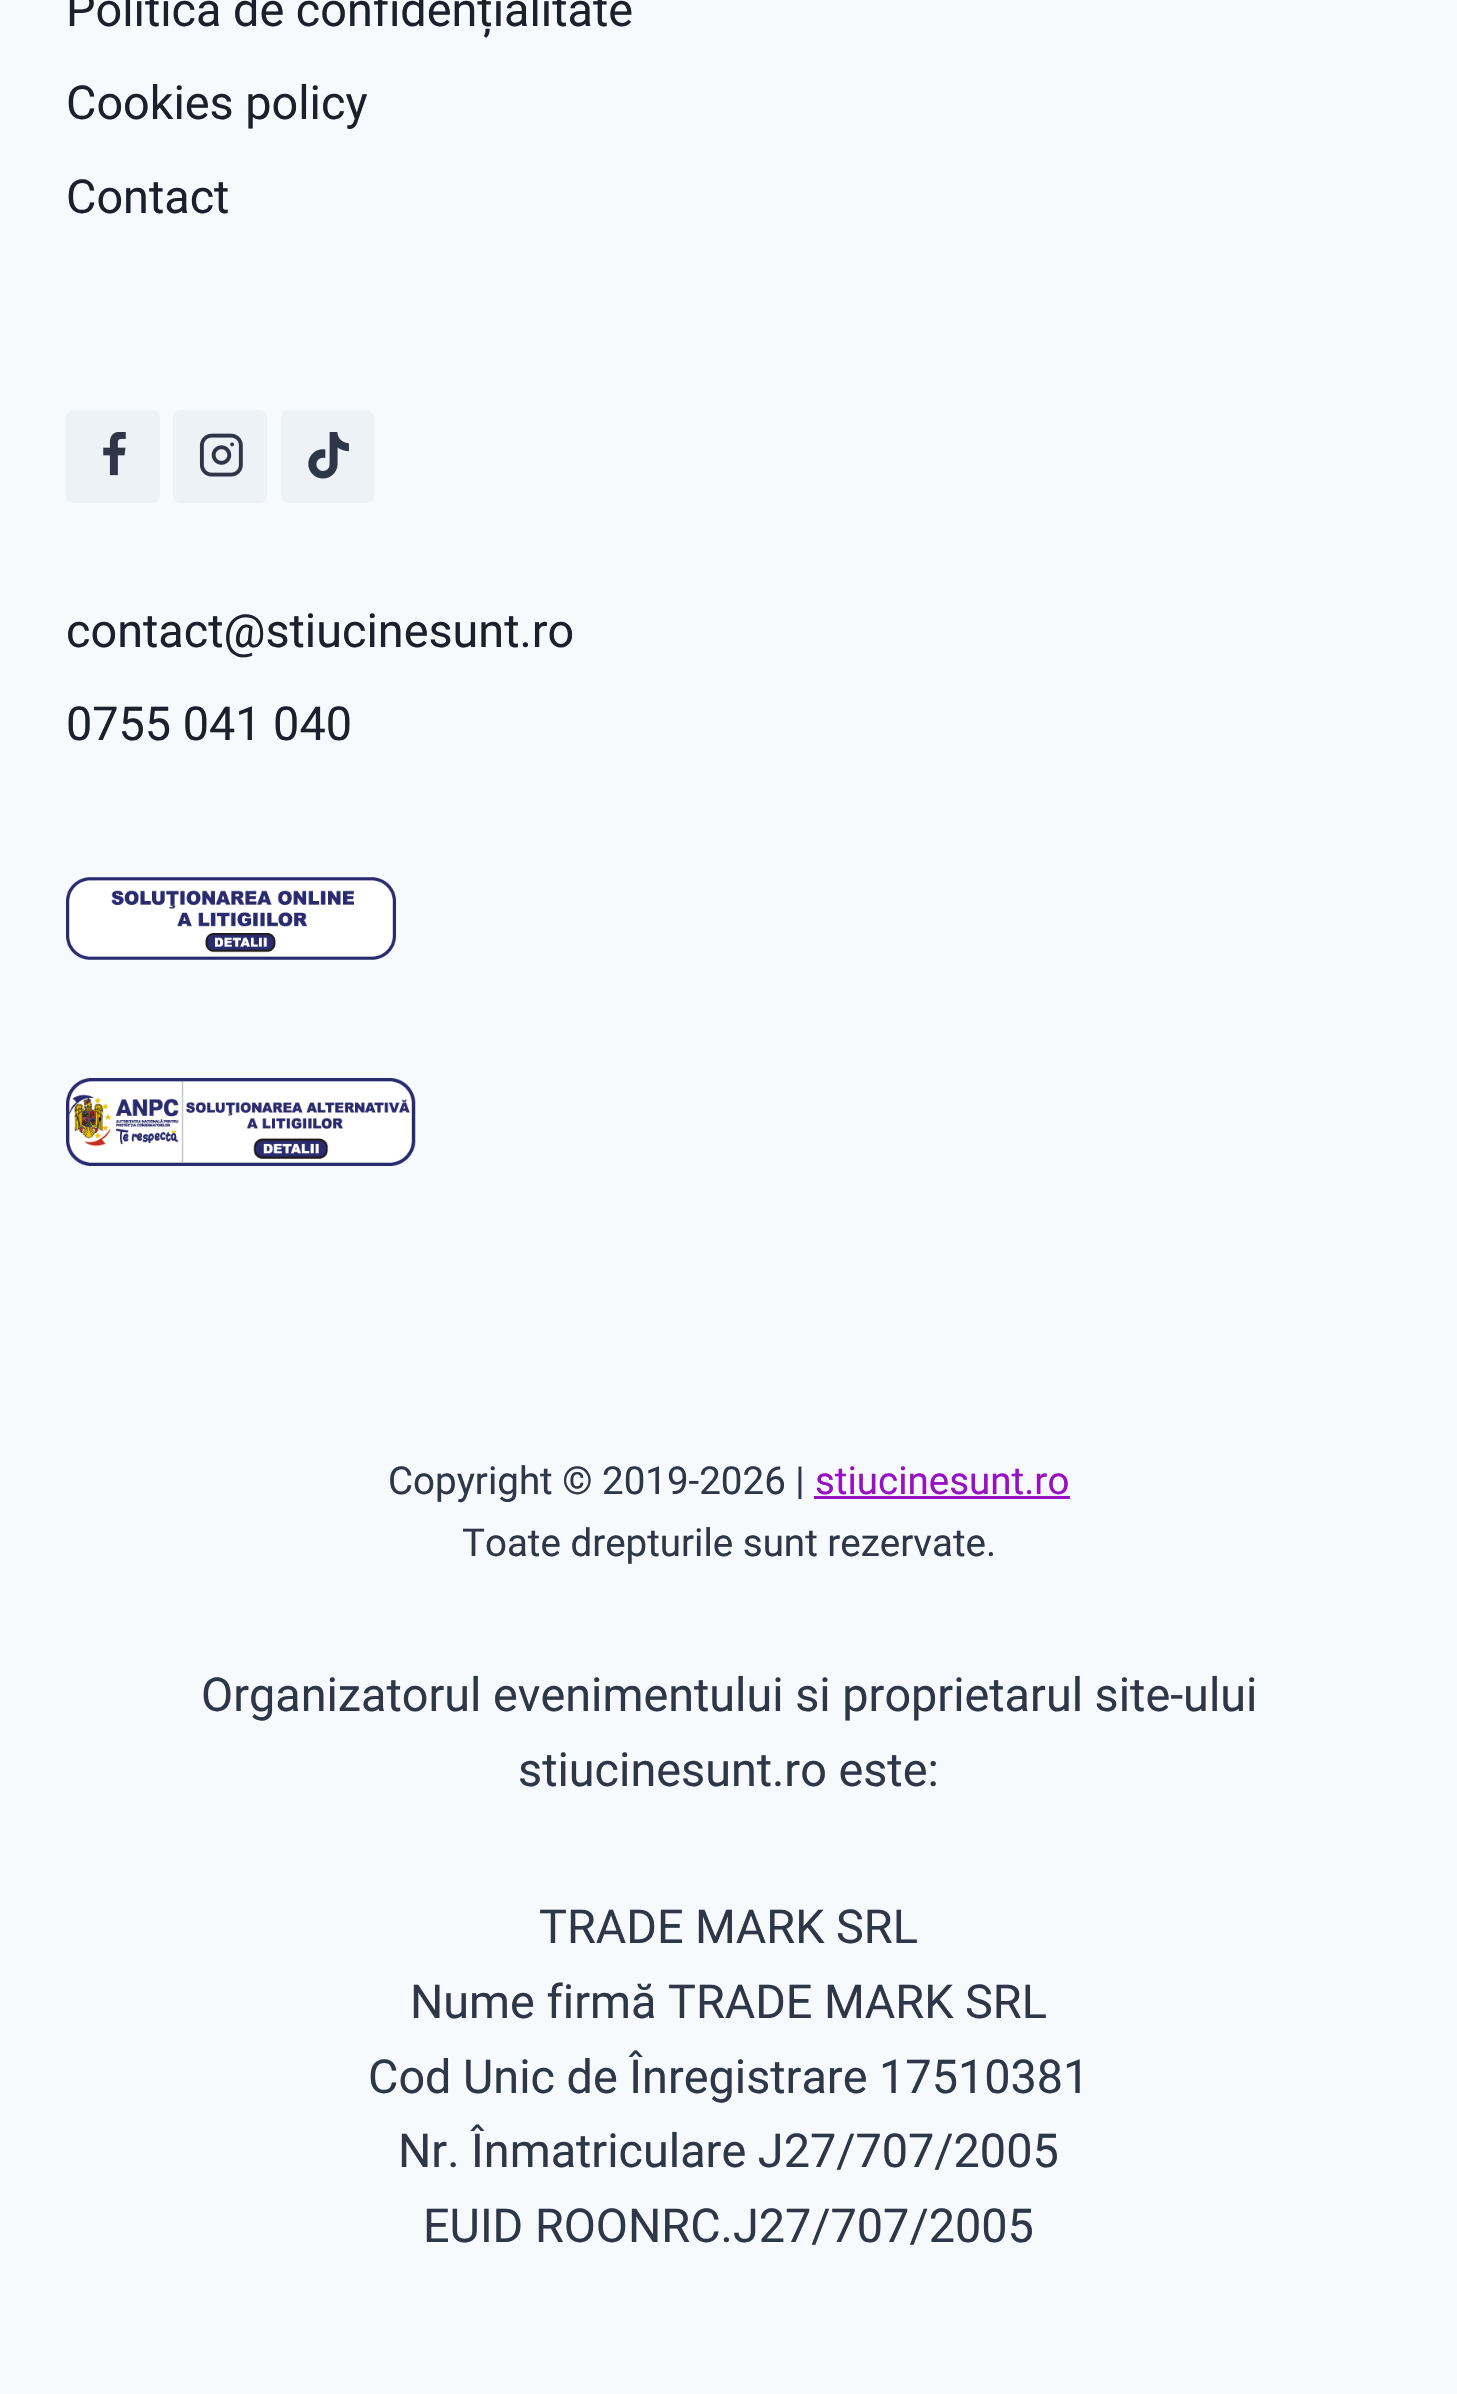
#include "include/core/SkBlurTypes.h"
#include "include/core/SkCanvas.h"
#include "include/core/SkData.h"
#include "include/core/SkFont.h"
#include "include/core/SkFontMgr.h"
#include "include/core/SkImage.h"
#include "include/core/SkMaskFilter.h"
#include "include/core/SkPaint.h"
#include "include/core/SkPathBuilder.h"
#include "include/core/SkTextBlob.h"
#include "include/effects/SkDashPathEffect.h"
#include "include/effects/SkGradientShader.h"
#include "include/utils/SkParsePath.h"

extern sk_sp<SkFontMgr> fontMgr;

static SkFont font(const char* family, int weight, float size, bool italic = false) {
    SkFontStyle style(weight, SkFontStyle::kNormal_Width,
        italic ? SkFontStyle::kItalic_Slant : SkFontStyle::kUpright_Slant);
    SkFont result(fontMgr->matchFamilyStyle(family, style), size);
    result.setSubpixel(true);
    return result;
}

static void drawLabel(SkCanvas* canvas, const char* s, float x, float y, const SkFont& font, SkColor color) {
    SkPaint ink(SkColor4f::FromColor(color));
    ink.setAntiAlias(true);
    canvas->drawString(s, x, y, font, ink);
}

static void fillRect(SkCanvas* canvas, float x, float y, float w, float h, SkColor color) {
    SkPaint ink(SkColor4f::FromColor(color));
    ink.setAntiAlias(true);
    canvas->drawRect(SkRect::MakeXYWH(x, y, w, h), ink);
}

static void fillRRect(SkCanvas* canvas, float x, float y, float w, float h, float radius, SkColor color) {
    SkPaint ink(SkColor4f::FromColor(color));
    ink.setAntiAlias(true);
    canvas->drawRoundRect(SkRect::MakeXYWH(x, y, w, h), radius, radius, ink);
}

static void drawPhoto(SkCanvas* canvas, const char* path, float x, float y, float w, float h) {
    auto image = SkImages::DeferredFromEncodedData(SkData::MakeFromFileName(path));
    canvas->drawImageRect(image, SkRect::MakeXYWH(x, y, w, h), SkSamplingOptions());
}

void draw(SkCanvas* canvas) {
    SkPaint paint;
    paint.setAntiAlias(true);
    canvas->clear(0xFFF7FAFC);
    SkFont font1 = font("Roboto", 400, 46.75f);
    drawLabel(canvas, "Politică de confidențialitate", 66, 26, font1, 0xFF1A202C);
    drawLabel(canvas, "Cookies policy", 66, 119, font1, 0xFF1A202C);
    drawLabel(canvas, "Contact", 66, 213, font1, 0xFF1A202C);
    fillRRect(canvas, 66, 410, 94, 93, 8, 0xFFEDF2F7);
    drawPhoto(canvas, "assets/img1.png", 103, 432, 23, 44);
    fillRRect(canvas, 173, 410, 94, 93, 8, 0xFFEDF2F7);
    drawPhoto(canvas, "assets/img2.png", 199, 433, 44, 44);
    fillRRect(canvas, 281, 410, 93, 93, 8, 0xFFEDF2F7);
    drawPhoto(canvas, "assets/img3.png", 308, 432, 41, 47);
    drawLabel(canvas, "contact@stiucinesunt.ro", 66, 647, font1, 0xFF1A202C);
    drawLabel(canvas, "0755 041 040", 66, 740, font1, 0xFF1A202C);
    drawPhoto(canvas, "assets/img4.png", 66, 877, 330, 83);
    drawPhoto(canvas, "assets/img5.png", 66, 1078, 350, 88);
    SkFont font2 = font("Roboto", 400, 38.5f);
    drawLabel(canvas, "Copyright © 2019-2026 |", 388, 1494, font2, 0xFF2D3748);
    drawLabel(canvas, "stiucinesunt.ro", 815, 1494, font2, 0xFF990FC4);
    fillRect(canvas, 814, 1496, 256, 3, 0xFF990FC4);
    drawLabel(canvas, "Toate drepturile sunt rezervate.", 462, 1556, font2, 0xFF2D3748);
    drawLabel(canvas, "Organizatorul evenimentului si proprietarul site-ului", 201, 1711, font1, 0xFF2D3748);
    drawLabel(canvas, "stiucinesunt.ro este:", 518, 1786, font1, 0xFF2D3748);
    drawLabel(canvas, "TRADE MARK SRL", 539, 1943, font1, 0xFF2D3748);
    drawLabel(canvas, "Nume firmă TRADE MARK SRL", 410, 2018, font1, 0xFF2D3748);
    drawLabel(canvas, "Cod Unic de Înregistrare 17510381", 368, 2093, font1, 0xFF2D3748);
    drawLabel(canvas, "Nr. Înmatriculare J27/707/2005", 398, 2167, font1, 0xFF2D3748);
    drawLabel(canvas, "EUID ROONRC.J27/707/2005", 423, 2242, font1, 0xFF2D3748);
}
